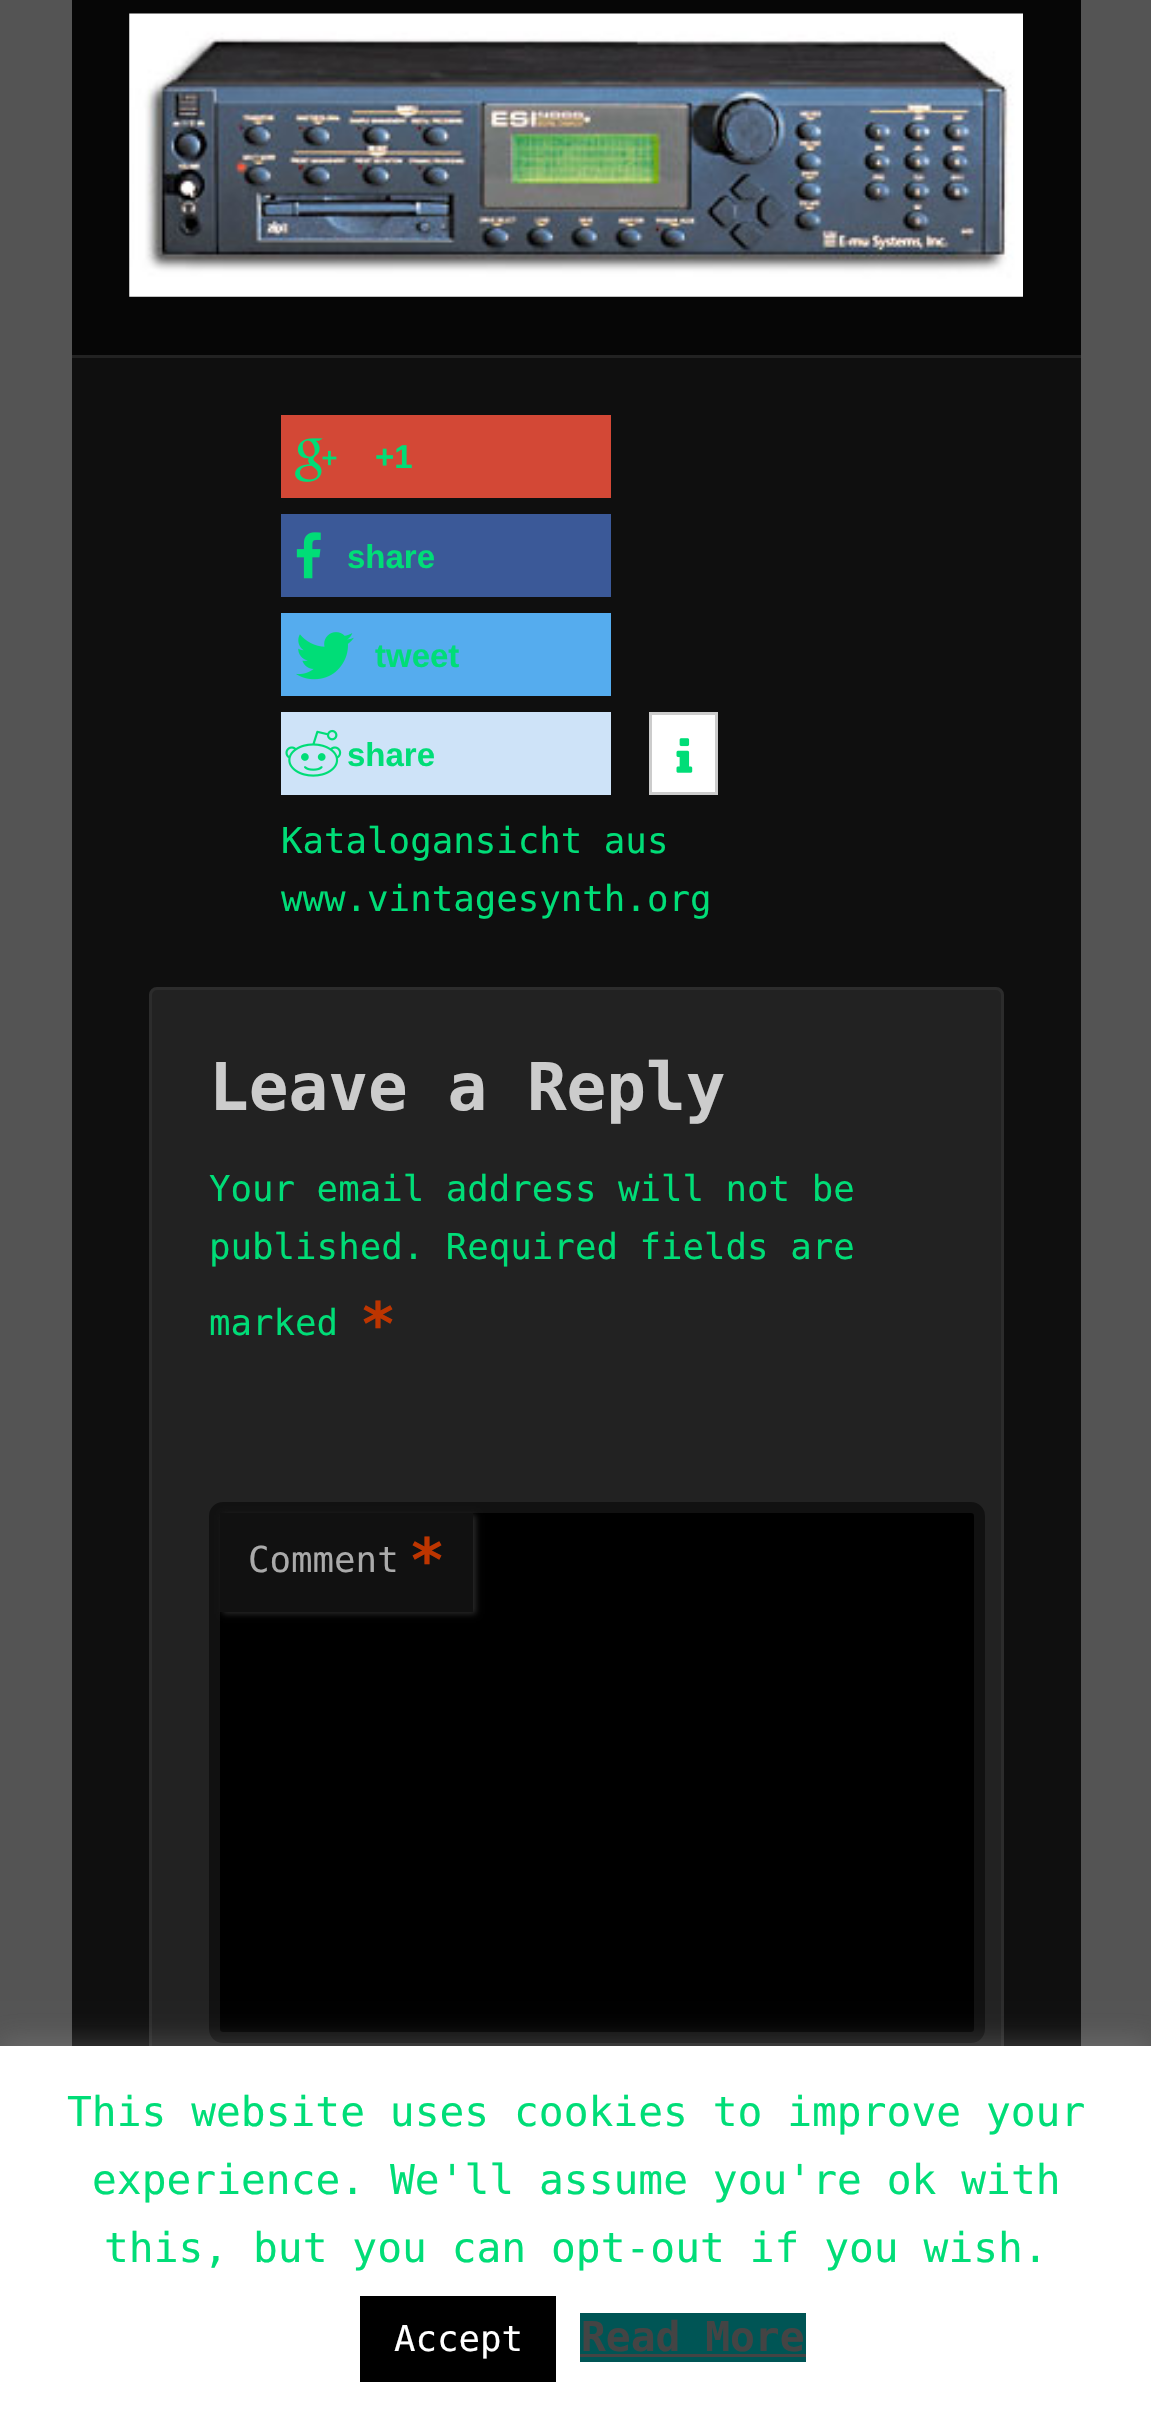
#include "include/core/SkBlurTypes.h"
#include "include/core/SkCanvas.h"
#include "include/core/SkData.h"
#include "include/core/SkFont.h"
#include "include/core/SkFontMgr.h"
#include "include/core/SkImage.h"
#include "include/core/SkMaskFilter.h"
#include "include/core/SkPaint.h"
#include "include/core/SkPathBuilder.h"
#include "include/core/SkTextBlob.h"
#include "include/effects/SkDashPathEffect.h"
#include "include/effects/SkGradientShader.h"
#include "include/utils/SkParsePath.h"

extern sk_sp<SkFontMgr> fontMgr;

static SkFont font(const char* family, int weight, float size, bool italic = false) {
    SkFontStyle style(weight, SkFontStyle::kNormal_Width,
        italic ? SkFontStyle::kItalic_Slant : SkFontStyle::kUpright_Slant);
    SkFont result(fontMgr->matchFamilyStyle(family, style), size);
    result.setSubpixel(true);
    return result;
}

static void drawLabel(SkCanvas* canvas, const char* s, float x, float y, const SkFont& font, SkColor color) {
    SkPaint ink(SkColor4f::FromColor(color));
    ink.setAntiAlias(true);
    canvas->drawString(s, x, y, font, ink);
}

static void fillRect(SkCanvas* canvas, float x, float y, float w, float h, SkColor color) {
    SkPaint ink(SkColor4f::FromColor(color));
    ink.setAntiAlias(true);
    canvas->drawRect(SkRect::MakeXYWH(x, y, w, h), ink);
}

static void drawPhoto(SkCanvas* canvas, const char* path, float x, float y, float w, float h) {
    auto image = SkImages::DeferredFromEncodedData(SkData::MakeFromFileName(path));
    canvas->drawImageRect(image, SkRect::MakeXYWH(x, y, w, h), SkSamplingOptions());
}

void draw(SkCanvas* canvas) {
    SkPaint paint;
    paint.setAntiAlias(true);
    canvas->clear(0xFF545454);
    fillRect(canvas, 72, 358, 1009, 1688, 0xFF0F0F0F);
    fillRect(canvas, 72, 0, 1009, 355, 0xFF060606);
    fillRect(canvas, 72, 355, 1009, 3, 0xFF222222);
    drawPhoto(canvas, "assets/img1.png", 129, 13, 894, 284);
    fillRect(canvas, 281, 415, 330, 83, 0xFFD34836);
    drawPhoto(canvas, "assets/img2.png", 295, 438, 42, 44);
    SkFont font1 = font("Liberation Sans", 700, 33);
    drawLabel(canvas, "+1", 375, 468, font1, 0xFF00DD77);
    fillRect(canvas, 281, 514, 330, 83, 0xFF3B5998);
    drawPhoto(canvas, "assets/img3.png", 296, 532, 25, 47);
    drawLabel(canvas, "share", 347, 568, font1, 0xFF00DD77);
    fillRect(canvas, 281, 613, 330, 83, 0xFF55ACEE);
    drawPhoto(canvas, "assets/img4.png", 296, 632, 58, 48);
    drawLabel(canvas, "tweet", 375, 667, font1, 0xFF00DD77);
    fillRect(canvas, 281, 712, 330, 83, 0xFFCEE3F8);
    drawPhoto(canvas, "assets/img5.png", 285, 729, 57, 48);
    drawLabel(canvas, "share", 347, 766, font1, 0xFF00DD77);
    paint.setStroke(true);
    paint.setStrokeWidth(3);
    paint.setColor(0xFFCCCCCC);
    canvas->drawRect(SkRect::MakeXYWH(650.5f, 713.5f, 66, 80), paint);
    fillRect(canvas, 652, 715, 63, 77, 0xFFFFFFFF);
    drawPhoto(canvas, "assets/img6.png", 676, 738, 17, 35);
    SkFont font2 = font("DejaVu Sans Mono", 400, 35.75f);
    drawLabel(canvas, "Katalogansicht aus", 281, 853, font2, 0xFF00DD77);
    drawLabel(canvas, "www.vintagesynth.org", 281, 911, font2, 0xFF00DD77);
    paint.setStroke(false);
    paint.setColor(0xFF222222);
    canvas->drawRoundRect(SkRect::MakeXYWH(150.5f, 988.5f, 852, 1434), 6.5f, 6.5f, paint);
    paint.setStroke(true);
    paint.setColor(0xFF2C2C2C);
    canvas->drawRoundRect(SkRect::MakeXYWH(150.5f, 988.5f, 852, 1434), 6.5f, 6.5f, paint);
    SkFont font3 = font("DejaVu Sans Mono", 700, 66);
    drawLabel(canvas, "Leave a Reply", 209, 1110, font3, 0xFFCCCCCC);
    drawLabel(canvas, "Your email address will not be", 209, 1201, font2, 0xFF00DD77);
    drawLabel(canvas, "published. Required fields are", 209, 1259, font2, 0xFF00DD77);
    drawLabel(canvas, "marked", 209, 1335, font2, 0xFF00DD77);
    SkFont font4 = font("DejaVu Sans Mono", 700, 60);
    drawLabel(canvas, "*", 360, 1345, font4, 0xFFBD3500);
    paint.setStroke(false);
    paint.setColor(0xFF000000);
    canvas->drawRoundRect(SkRect::MakeXYWH(214.5f, 1507.5f, 765, 530), 8.5f, 8.5f, paint);
    paint.setStroke(true);
    paint.setStrokeWidth(11);
    paint.setColor(0xFF111111);
    canvas->drawRoundRect(SkRect::MakeXYWH(214.5f, 1507.5f, 765, 530), 8.5f, 8.5f, paint);
    paint.setStroke(false);
    paint.setColor(0xCC333333);
    paint.setMaskFilter(SkMaskFilter::MakeBlur(kNormal_SkBlurStyle, 3));
    canvas->drawRect(SkRect::MakeXYWH(223, 1515, 253, 99), paint);
    paint.setMaskFilter(nullptr);
    fillRect(canvas, 220, 1513, 253, 99, 0xFF111111);
    drawLabel(canvas, "Comment", 248, 1572, font2, 0xFFAAAAAA);
    drawLabel(canvas, "*", 409, 1581, font4, 0xFFBD3500);
    paint.setColor(0x4DACABAB);
    paint.setMaskFilter(SkMaskFilter::MakeBlur(kNormal_SkBlurStyle, 14));
    canvas->drawRect(SkRect::MakeXYWH(0, 2043, 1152, 369), paint);
    paint.setMaskFilter(nullptr);
    fillRect(canvas, 0, 2046, 1151, 367, 0xFFFFFFFF);
    SkFont font5 = font("DejaVu Sans Mono", 400, 41.25f);
    drawLabel(canvas, "This website uses cookies to improve your", 67, 2126, font5, 0xFF00DD77);
    drawLabel(canvas, "experience. We'll assume you're ok with", 92, 2194, font5, 0xFF00DD77);
    drawLabel(canvas, "this, but you can opt-out if you wish.", 104, 2262, font5, 0xFF00DD77);
    fillRect(canvas, 360, 2296, 196, 86, 0xFF000000);
    drawLabel(canvas, "Accept", 394, 2351, font2, 0xFFFFFFFF);
    fillRect(canvas, 580, 2313, 226, 49, 0xFF005555);
    SkFont font6 = font("DejaVu Sans Mono", 700, 41.25f);
    drawLabel(canvas, "Read More", 581, 2351, font6, 0xFF444444);
    fillRect(canvas, 580, 2354, 226, 3, 0xFF444444);
}
